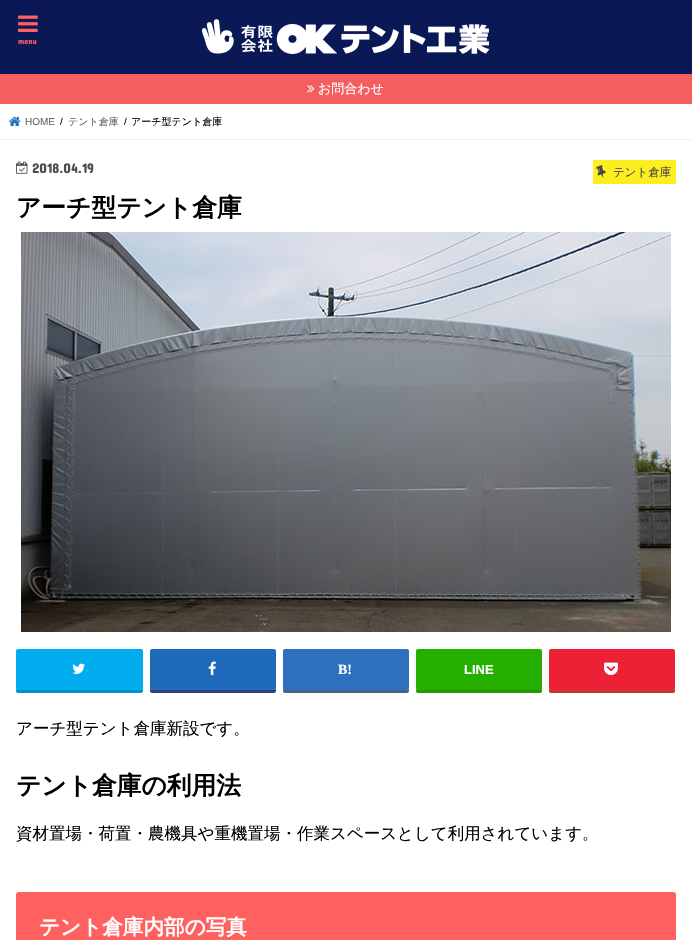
#include "include/core/SkBlurTypes.h"
#include "include/core/SkCanvas.h"
#include "include/core/SkData.h"
#include "include/core/SkFont.h"
#include "include/core/SkFontMgr.h"
#include "include/core/SkImage.h"
#include "include/core/SkMaskFilter.h"
#include "include/core/SkPaint.h"
#include "include/core/SkPathBuilder.h"
#include "include/core/SkTextBlob.h"
#include "include/effects/SkDashPathEffect.h"
#include "include/effects/SkGradientShader.h"
#include "include/utils/SkParsePath.h"

extern sk_sp<SkFontMgr> fontMgr;

static SkFont font(const char* family, int weight, float size, bool italic = false) {
    SkFontStyle style(weight, SkFontStyle::kNormal_Width,
        italic ? SkFontStyle::kItalic_Slant : SkFontStyle::kUpright_Slant);
    SkFont result(fontMgr->matchFamilyStyle(family, style), size);
    result.setSubpixel(true);
    return result;
}

static void drawLabel(SkCanvas* canvas, const char* s, float x, float y, const SkFont& font, SkColor color) {
    SkPaint ink(SkColor4f::FromColor(color));
    ink.setAntiAlias(true);
    canvas->drawString(s, x, y, font, ink);
}

static void fillRect(SkCanvas* canvas, float x, float y, float w, float h, SkColor color) {
    SkPaint ink(SkColor4f::FromColor(color));
    ink.setAntiAlias(true);
    canvas->drawRect(SkRect::MakeXYWH(x, y, w, h), ink);
}

static void fillRRect(SkCanvas* canvas, float x, float y, float w, float h, float radius, SkColor color) {
    SkPaint ink(SkColor4f::FromColor(color));
    ink.setAntiAlias(true);
    canvas->drawRoundRect(SkRect::MakeXYWH(x, y, w, h), radius, radius, ink);
}

static void drawPhoto(SkCanvas* canvas, const char* path, float x, float y, float w, float h) {
    auto image = SkImages::DeferredFromEncodedData(SkData::MakeFromFileName(path));
    canvas->drawImageRect(image, SkRect::MakeXYWH(x, y, w, h), SkSamplingOptions());
}

static SkPath parsePath(const char* data, bool evenOdd = false) {
    SkPath result = *SkParsePath::FromSVGString(data);
    if (evenOdd) result.setFillType(SkPathFillType::kEvenOdd);
    return result;
}

void draw(SkCanvas* canvas) {
    SkPaint paint;
    paint.setAntiAlias(true);
    canvas->clear(0xFFFFFFFF);
    fillRect(canvas, 0, 0, 692, 74, 0xFF0A1856);
    drawPhoto(canvas, "assets/img1.png", 18, 15, 20, 17);
    SkFont font1 = font("Concert One", 400, 8);
    drawLabel(canvas, "menu", 18, 44, font1, 0xFFFF6060);
    drawPhoto(canvas, "assets/img2.png", 202, 19, 288, 35);
    fillRect(canvas, 0, 74, 692, 30, 0xFFF55E5E);
    drawPhoto(canvas, "assets/img3.png", 307, 85, 8, 8);
    SkFont font2 = font("WenQuanYi Zen Hei", 500, 13);
    drawLabel(canvas, "お問合わせ", 318, 93, font2, 0xFFFFFFFF);
    fillRect(canvas, 0, 139, 692, 1, 0xFFF7F7F7);
    drawPhoto(canvas, "assets/img4.png", 8, 116, 13, 11);
    SkFont font3 = font("Liberation Sans", 400, 10);
    drawLabel(canvas, "HOME", 25, 125, font3, 0xFF666666);
    drawLabel(canvas, "/", 60, 125, font3, 0xFF000000);
    SkFont font4 = font("WenQuanYi Zen Hei", 500, 10);
    drawLabel(canvas, "テント倉庫", 68, 125, font4, 0xFF666666);
    drawLabel(canvas, "/", 124, 125, font3, 0xFF000000);
    drawLabel(canvas, "アーチ型テント倉庫", 131, 125, font4, 0xFF000000);
    paint.setColor(0xFFDDDDDD);
    paint.setMaskFilter(SkMaskFilter::MakeBlur(kNormal_SkBlurStyle, 0.5f));
    canvas->drawRect(SkRect::MakeXYWH(0, 140, 692, 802), paint);
    paint.setMaskFilter(nullptr);
    fillRect(canvas, 0, 140, 692, 800, 0xFFFFFFFF);
    drawPhoto(canvas, "assets/img5.png", 16, 161, 12, 13);
    SkFont font5 = font("Concert One", 400, 14);
    drawLabel(canvas, "2018.04.19", 32, 173, font5, 0xFF4D4D4D);
    fillRect(canvas, 593, 160, 83, 24, 0xFFFCEE21);
    drawPhoto(canvas, "assets/img6.png", 596, 165, 10, 13);
    SkFont font6 = font("WenQuanYi Zen Hei", 500, 11.5f);
    drawLabel(canvas, "テント倉庫", 613, 176, font6, 0xFF444444);
    SkFont font7 = font("WenQuanYi Zen Hei", 700, 24.75f);
    drawLabel(canvas, "アーチ型テント倉庫", 16, 216, font7, 0xFF000000);
    drawPhoto(canvas, "assets/img7.png", 21, 232, 650, 400);
    paint.setColor(0xFF0092CA);
    canvas->drawPath(parsePath("M16 688V691C16 692 17 693 18 693H141C142 693 143 692 143 691V688C143 689 142 690 141 690H18C17 690 16 689 16 688Z"), paint);
    fillRRect(canvas, 16, 649, 127, 41, 2, 0xFF00ACEE);
    drawPhoto(canvas, "assets/img8.png", 72, 663, 13, 11);
    paint.setColor(0xFF2C4373);
    canvas->drawPath(parsePath("M150 688V691C150 692 151 693 152 693H274C275 693 276 692 276 691V688C276 689 275 690 274 690H152C151 690 150 689 150 688Z"), paint);
    fillRRect(canvas, 150, 649, 126, 41, 2, 0xFF1F6ABA);
    drawPhoto(canvas, "assets/img9.png", 208, 661, 8, 15);
    paint.setColor(0xFF43638B);
    canvas->drawPath(parsePath("M283 688V691C283 692 284 693 285 693H407C408 693 409 692 409 691V688C409 689 408 690 407 690H285C284 690 283 689 283 688Z"), paint);
    fillRRect(canvas, 283, 649, 126, 41, 2, 0xFF2F70BE);
    SkFont font8 = font("Liberation Serif", 700, 14);
    drawLabel(canvas, "B!", 338, 674, font8, 0xFFFFFFFF);
    paint.setColor(0xFF219900);
    canvas->drawPath(parsePath("M416 688V691C416 692 417 693 418 693H540C541 693 542 692 542 691V688C542 689 541 690 540 690H418C417 690 416 689 416 688Z"), paint);
    fillRRect(canvas, 416, 649, 126, 41, 2, 0xFF25AF00);
    SkFont font9 = font("Liberation Sans", 700, 13);
    drawLabel(canvas, "LINE", 464, 674, font9, 0xFFFFFFFF);
    paint.setColor(0xFFC0392B);
    canvas->drawPath(parsePath("M549 688V691C549 692 550 693 551 693H673C674 693 675 692 675 691V688C675 689 674 690 673 690H551C550 690 549 689 549 688Z"), paint);
    fillRRect(canvas, 549, 649, 126, 41, 2, 0xFFEC2136);
    drawPhoto(canvas, "assets/img10.png", 604, 662, 14, 13);
    SkFont font10 = font("WenQuanYi Zen Hei", 500, 16.5f);
    drawLabel(canvas, "アーチ型テント倉庫新設です。", 16, 734, font10, 0xFF000000);
    drawLabel(canvas, "テント倉庫の利用法", 16, 794, font7, 0xFF000000);
    drawLabel(canvas, "資材置場・荷置・農機具や重機置場・作業スペースとして利用されています。", 16, 839, font10, 0xFF000000);
    fillRRect(canvas, 16, 892, 660, 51, 3, 0xFFFF6060);
    SkFont font11 = font("WenQuanYi Zen Hei", 700, 20.6f);
    drawLabel(canvas, "テント倉庫内部の写真", 39, 934, font11, 0xFFFFFFFF);
}
